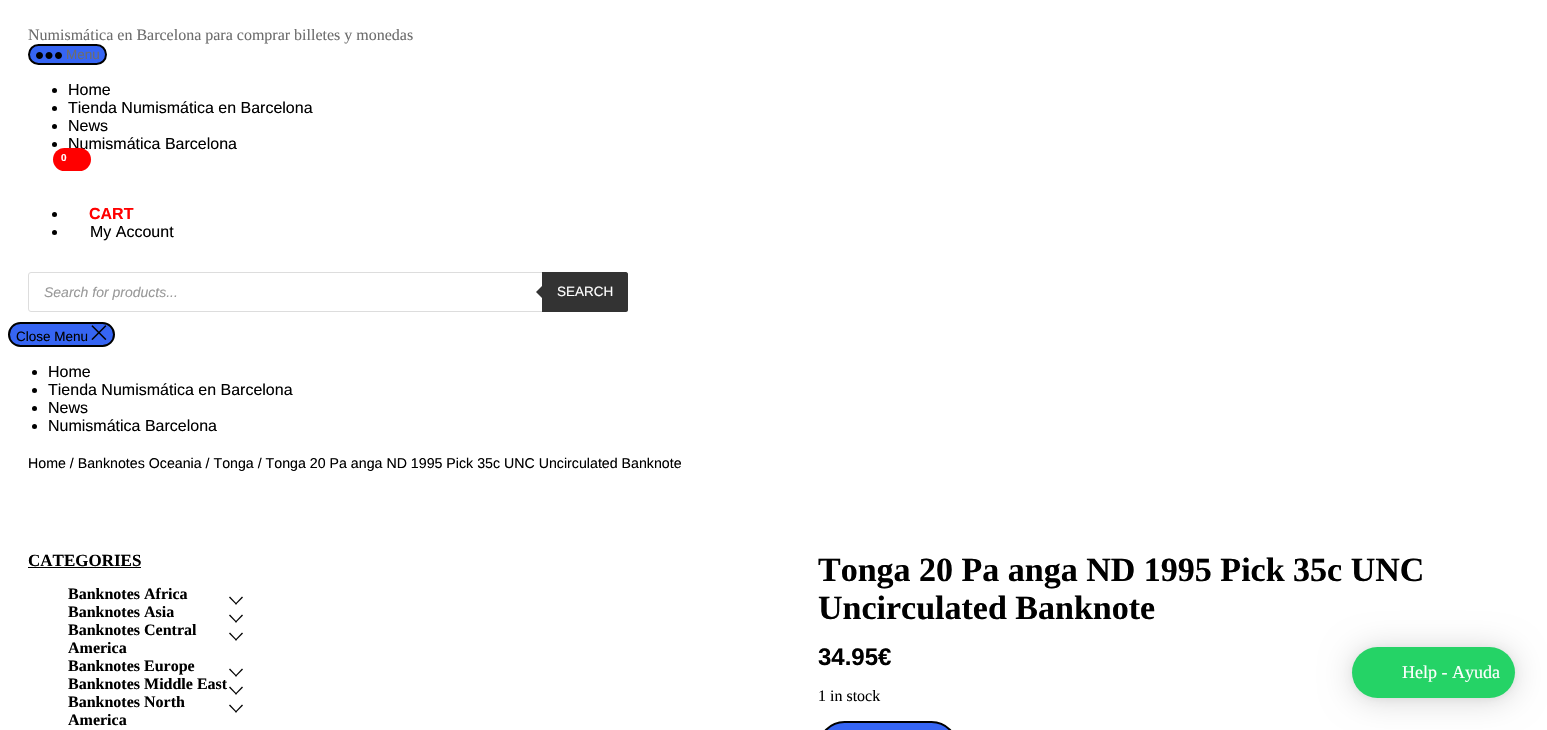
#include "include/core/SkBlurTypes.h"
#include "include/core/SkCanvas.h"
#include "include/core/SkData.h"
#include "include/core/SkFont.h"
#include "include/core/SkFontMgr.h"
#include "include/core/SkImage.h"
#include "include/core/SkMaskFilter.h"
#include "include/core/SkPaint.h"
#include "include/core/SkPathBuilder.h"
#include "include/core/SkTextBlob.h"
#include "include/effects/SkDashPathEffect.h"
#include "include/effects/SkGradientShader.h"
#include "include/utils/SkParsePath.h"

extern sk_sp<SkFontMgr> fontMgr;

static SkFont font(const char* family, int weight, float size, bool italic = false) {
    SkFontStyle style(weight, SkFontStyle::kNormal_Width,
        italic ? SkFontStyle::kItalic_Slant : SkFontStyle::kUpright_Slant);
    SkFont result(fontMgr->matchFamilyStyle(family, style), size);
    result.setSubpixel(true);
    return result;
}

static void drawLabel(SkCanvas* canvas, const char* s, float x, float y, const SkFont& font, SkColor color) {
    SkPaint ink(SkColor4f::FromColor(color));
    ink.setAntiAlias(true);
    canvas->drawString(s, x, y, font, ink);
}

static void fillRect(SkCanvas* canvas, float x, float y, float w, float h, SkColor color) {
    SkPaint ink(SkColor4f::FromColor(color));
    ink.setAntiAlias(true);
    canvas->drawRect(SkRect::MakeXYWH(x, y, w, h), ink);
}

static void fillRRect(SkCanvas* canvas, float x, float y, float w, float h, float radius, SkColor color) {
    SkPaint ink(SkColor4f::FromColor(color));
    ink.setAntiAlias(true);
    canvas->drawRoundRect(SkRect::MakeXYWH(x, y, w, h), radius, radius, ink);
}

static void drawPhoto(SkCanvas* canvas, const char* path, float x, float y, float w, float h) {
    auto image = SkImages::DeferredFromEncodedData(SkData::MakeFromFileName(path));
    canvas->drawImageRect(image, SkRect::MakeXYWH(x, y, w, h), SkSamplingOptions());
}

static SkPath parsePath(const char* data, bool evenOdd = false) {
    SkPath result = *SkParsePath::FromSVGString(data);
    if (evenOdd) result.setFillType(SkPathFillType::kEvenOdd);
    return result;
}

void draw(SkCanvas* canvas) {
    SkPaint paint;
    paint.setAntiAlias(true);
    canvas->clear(0xFFFFFFFF);
    SkFont font1 = font("Liberation Serif", 400, 16);
    drawLabel(canvas, "Numismática en Barcelona para comprar billetes y monedas", 28, 40, font1, 0xFF6D6D6D);
    paint.setColor(0xFF3665F3);
    canvas->drawRoundRect(SkRect::MakeXYWH(29, 45, 77, 19), 9.5f, 9.5f, paint);
    paint.setStroke(true);
    paint.setStrokeWidth(2);
    paint.setColor(0xFF000000);
    canvas->drawRoundRect(SkRect::MakeXYWH(29, 45, 77, 19), 9.5f, 9.5f, paint);
    drawPhoto(canvas, "assets/img1.png", 36, 52, 26, 7);
    SkFont font2 = font("Liberation Sans", 400, 13.5f);
    drawLabel(canvas, "Menu", 66, 59, font2, 0xFF6D6D6D);
    paint.setStroke(false);
    canvas->drawCircle(54.5f, 90.5f, 2.5f, paint);
    SkFont font3 = font("Liberation Sans", 400, 16);
    drawLabel(canvas, "Home", 68, 95, font3, 0xFF000000);
    canvas->drawCircle(54.5f, 108.5f, 2.5f, paint);
    drawLabel(canvas, "Tienda Numismática en Barcelona", 68, 113, font3, 0xFF000000);
    canvas->drawCircle(54.5f, 126.5f, 2.5f, paint);
    drawLabel(canvas, "News", 68, 131, font3, 0xFF000000);
    canvas->drawCircle(54.5f, 144.5f, 2.5f, paint);
    drawLabel(canvas, "Numismática Barcelona", 68, 149, font3, 0xFF000000);
    canvas->drawCircle(54.5f, 214.5f, 2.5f, paint);
    fillRRect(canvas, 53, 148, 38, 23, 11.5f, 0xFFFF0000);
    SkFont font4 = font("Liberation Sans", 700, 10);
    drawLabel(canvas, "0", 61, 161, font4, 0xFFFFFFFF);
    SkFont font5 = font("Liberation Sans", 700, 16);
    drawLabel(canvas, "CART", 89, 219, font5, 0xFFFF0000);
    canvas->drawCircle(54.5f, 232.5f, 2.5f, paint);
    drawLabel(canvas, "My Account", 90, 237, font3, 0xFF000000);
    paint.setStroke(true);
    paint.setStrokeWidth(1);
    paint.setColor(0xFFDDDDDD);
    canvas->drawRoundRect(SkRect::MakeXYWH(28.5f, 272.5f, 599, 39), 2.5f, 2.5f, paint);
    SkFont font6 = font("Liberation Sans", 400, 14, true);
    drawLabel(canvas, "Search for products...", 44, 297, font6, 0xFF999999);
    paint.setStroke(false);
    paint.setColor(0xFF333333);
    canvas->drawPath(parsePath("M542 272H626C627 272 628 273 628 274V310C628 311 627 312 626 312H542Z"), paint);
    canvas->drawPath(parsePath("M544 284V300L536 292Z"), paint);
    drawLabel(canvas, "SEARCH", 557, 296, font2, 0xFFFFFFFF);
    paint.setColor(0xFF3665F3);
    canvas->drawRoundRect(SkRect::MakeXYWH(9, 323, 105, 23), 11.5f, 11.5f, paint);
    paint.setStroke(true);
    paint.setStrokeWidth(2);
    paint.setColor(0xFF000000);
    canvas->drawRoundRect(SkRect::MakeXYWH(9, 323, 105, 23), 11.5f, 11.5f, paint);
    drawLabel(canvas, "Close Menu", 16, 341, font2, 0xFF000000);
    drawPhoto(canvas, "assets/img2.png", 91, 325, 16, 15);
    paint.setStroke(false);
    canvas->drawCircle(34.5f, 372.5f, 2.5f, paint);
    drawLabel(canvas, "Home", 48, 377, font3, 0xFF000000);
    canvas->drawCircle(34.5f, 390.5f, 2.5f, paint);
    drawLabel(canvas, "Tienda Numismática en Barcelona", 48, 395, font3, 0xFF000000);
    canvas->drawCircle(34.5f, 408.5f, 2.5f, paint);
    drawLabel(canvas, "News", 48, 413, font3, 0xFF000000);
    canvas->drawCircle(34.5f, 426.5f, 2.5f, paint);
    drawLabel(canvas, "Numismática Barcelona", 48, 431, font3, 0xFF000000);
    SkFont font7 = font("Liberation Sans", 400, 14.2f);
    drawLabel(canvas, "Home / Banknotes Oceania / Tonga / Tonga 20 Pa anga ND 1995 Pick 35c UNC Uncirculated Banknote", 28, 468, font7, 0xFF000000);
    SkFont font8 = font("Liberation Serif", 700, 17);
    drawLabel(canvas, "CATEGORIES", 28, 566, font8, 0xFF000000);
    fillRect(canvas, 28, 567, 113, 1, 0xFF000000);
    SkFont font9 = font("Liberation Serif", 700, 16);
    drawLabel(canvas, "Banknotes Africa", 68, 599, font9, 0xFF000000);
    canvas->drawPath(parsePath("M230 596.5L237 604L236 604.5L229 597.5Z"), paint);
    canvas->drawPath(parsePath("M235 604L242 596.5L243 597.5L236 604.5Z"), paint);
    drawLabel(canvas, "Banknotes Asia", 68, 617, font9, 0xFF000000);
    canvas->drawPath(parsePath("M230 614.5L237 622L236 622.5L229 615.5Z"), paint);
    canvas->drawPath(parsePath("M235 622L242 614.5L243 615.5L236 622.5Z"), paint);
    drawLabel(canvas, "Banknotes Central", 68, 635, font9, 0xFF000000);
    drawLabel(canvas, "America", 68, 653, font9, 0xFF000000);
    canvas->drawPath(parsePath("M230 632.5L237 640L236 640.5L229 633.5Z"), paint);
    canvas->drawPath(parsePath("M235 640L242 632.5L243 633.5L236 640.5Z"), paint);
    drawLabel(canvas, "Banknotes Europe", 68, 671, font9, 0xFF000000);
    canvas->drawPath(parsePath("M230 668.5L237 676L236 676.5L229 669.5Z"), paint);
    canvas->drawPath(parsePath("M235 676L242 668.5L243 669.5L236 676.5Z"), paint);
    drawLabel(canvas, "Banknotes Middle East", 68, 689, font9, 0xFF000000);
    canvas->drawPath(parsePath("M230 686.5L237 694L236 694.5L229 687.5Z"), paint);
    canvas->drawPath(parsePath("M235 694L242 686.5L243 687.5L236 694.5Z"), paint);
    drawLabel(canvas, "Banknotes North", 68, 707, font9, 0xFF000000);
    drawLabel(canvas, "America", 68, 725, font9, 0xFF000000);
    canvas->drawPath(parsePath("M230 704.5L237 712L236 712.5L229 705.5Z"), paint);
    canvas->drawPath(parsePath("M235 712L242 704.5L243 705.5L236 712.5Z"), paint);
    SkFont font10 = font("Liberation Serif", 700, 34);
    drawLabel(canvas, "Tonga 20 Pa anga ND 1995 Pick 35c UNC", 818, 581, font10, 0xFF000000);
    drawLabel(canvas, "Uncirculated Banknote", 818, 619, font10, 0xFF000000);
    SkFont font11 = font("Liberation Sans", 700, 24);
    drawLabel(canvas, "34.95€", 818, 665, font11, 0xFF000000);
    drawLabel(canvas, "1 in stock", 818, 701, font1, 0xFF000000);
    paint.setColor(0xFF3665F3);
    canvas->drawRoundRect(SkRect::MakeXYWH(819, 722, 138, 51), 40.5f, 40.5f, paint);
    paint.setStroke(true);
    paint.setColor(0xFF000000);
    canvas->drawRoundRect(SkRect::MakeXYWH(819, 722, 138, 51), 40.5f, 40.5f, paint);
    paint.setStroke(false);
    paint.setColor(0x29000000);
    paint.setMaskFilter(SkMaskFilter::MakeBlur(kNormal_SkBlurStyle, 16));
    canvas->drawRoundRect(SkRect::MakeXYWH(1352, 649, 163, 51), 25.5f, 25.5f, paint);
    paint.setMaskFilter(nullptr);
    paint.setColor(0x0F000000);
    paint.setMaskFilter(SkMaskFilter::MakeBlur(kNormal_SkBlurStyle, 3));
    canvas->drawRoundRect(SkRect::MakeXYWH(1352, 648, 163, 51), 25.5f, 25.5f, paint);
    paint.setMaskFilter(nullptr);
    fillRRect(canvas, 1352, 647, 163, 51, 25.5f, 0xFF25D366);
    SkFont font12 = font("Liberation Serif", 400, 18);
    drawLabel(canvas, "Help - Ayuda", 1402, 678, font12, 0xFFFFFFFF);
}
